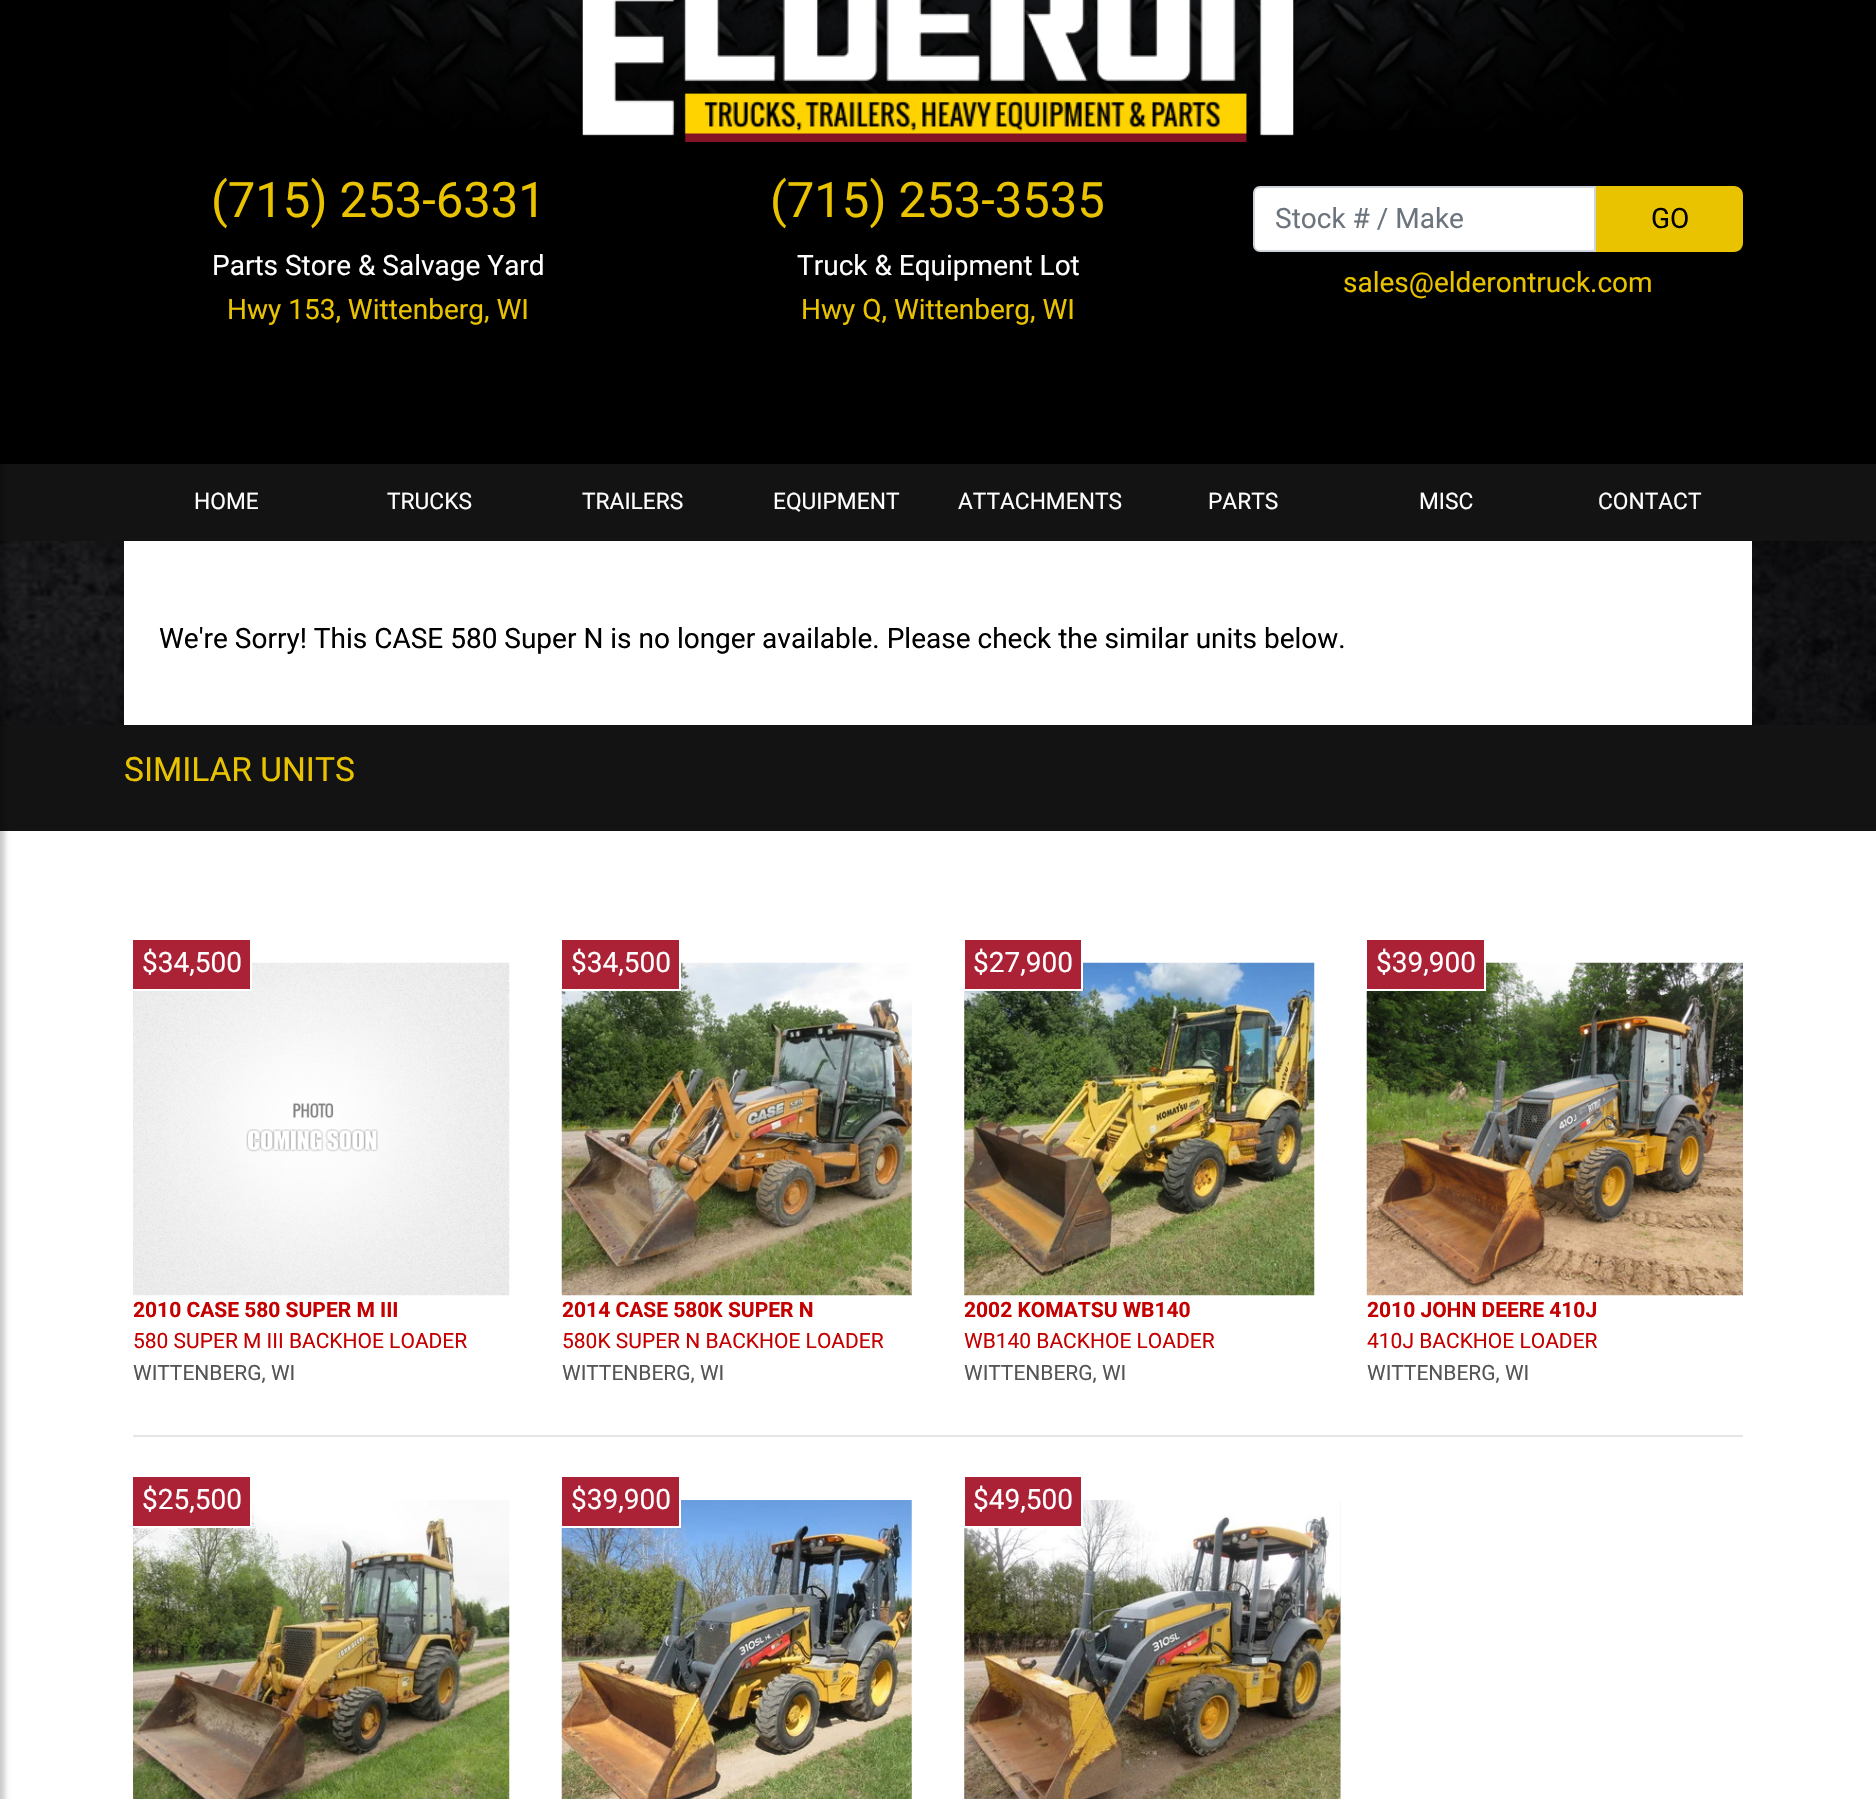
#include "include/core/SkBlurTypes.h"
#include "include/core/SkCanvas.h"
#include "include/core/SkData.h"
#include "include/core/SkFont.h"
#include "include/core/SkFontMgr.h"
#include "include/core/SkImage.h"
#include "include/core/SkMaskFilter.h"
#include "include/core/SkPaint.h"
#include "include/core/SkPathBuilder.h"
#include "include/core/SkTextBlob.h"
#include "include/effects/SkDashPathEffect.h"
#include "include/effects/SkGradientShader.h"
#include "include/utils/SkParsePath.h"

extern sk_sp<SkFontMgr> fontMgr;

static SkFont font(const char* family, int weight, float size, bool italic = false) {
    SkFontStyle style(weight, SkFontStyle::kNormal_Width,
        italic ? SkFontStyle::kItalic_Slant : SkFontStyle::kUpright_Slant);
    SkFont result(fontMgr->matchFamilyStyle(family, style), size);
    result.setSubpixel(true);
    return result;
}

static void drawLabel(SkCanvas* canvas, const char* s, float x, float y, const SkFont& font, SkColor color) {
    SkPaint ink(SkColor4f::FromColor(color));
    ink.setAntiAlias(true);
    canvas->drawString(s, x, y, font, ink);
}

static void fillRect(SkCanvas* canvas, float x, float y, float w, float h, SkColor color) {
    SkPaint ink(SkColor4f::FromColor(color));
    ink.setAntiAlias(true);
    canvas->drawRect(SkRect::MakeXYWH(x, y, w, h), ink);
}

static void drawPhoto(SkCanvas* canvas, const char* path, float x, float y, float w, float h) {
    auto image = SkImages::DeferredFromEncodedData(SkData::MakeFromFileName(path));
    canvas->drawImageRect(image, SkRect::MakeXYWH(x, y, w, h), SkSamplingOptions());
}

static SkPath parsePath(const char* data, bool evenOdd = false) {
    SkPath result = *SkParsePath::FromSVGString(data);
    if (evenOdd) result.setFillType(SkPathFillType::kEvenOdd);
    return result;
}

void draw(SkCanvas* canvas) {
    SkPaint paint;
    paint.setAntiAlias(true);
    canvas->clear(0xFFFFFFFF);
    drawPhoto(canvas, "assets/img1.png", 0, 541, 1876, 184);
    fillRect(canvas, 0, 0, 1876, 464, 0xFF000000);
    fillRect(canvas, 0, 464, 1876, 77, 0xFF131313);
    fillRect(canvas, 0, 725, 1876, 106, 0xFF131313);
    paint.setColor(0x33000000);
    paint.setMaskFilter(SkMaskFilter::MakeBlur(kNormal_SkBlurStyle, 2.5f));
    canvas->drawRect(SkRect::MakeXYWH(-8, 5, 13, 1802), paint);
    paint.setMaskFilter(nullptr);
    drawPhoto(canvas, "assets/img2.png", 230, 0, 1454, 130);
    drawPhoto(canvas, "assets/img3.png", 582, 0, 712, 142);
    SkFont font1 = font("Roboto", 400, 49);
    drawLabel(canvas, "(715) 253-6331", 211, 217, font1, 0xFFE9C300);
    SkFont font2 = font("Roboto", 400, 28);
    drawLabel(canvas, "Parts Store & Salvage Yard", 212, 275, font2, 0xFFFFFFFF);
    drawLabel(canvas, "Hwy 153, Wittenberg, WI", 227, 319, font2, 0xFFE9C300);
    drawLabel(canvas, "(715) 253-3535", 770, 217, font1, 0xFFE9C300);
    drawLabel(canvas, "Truck & Equipment Lot", 797, 275, font2, 0xFFFFFFFF);
    drawLabel(canvas, "Hwy Q, Wittenberg, WI", 801, 319, font2, 0xFFE9C300);
    paint.setColor(0xFFFFFFFF);
    canvas->drawPath(parsePath("M1260 187H1595V251H1260C1256.5 251 1254 248.5 1254 245V193C1254 189.5 1256.5 187 1260 187Z"), paint);
    paint.setStroke(true);
    paint.setStrokeWidth(2);
    paint.setColor(0xFFCED4DA);
    canvas->drawPath(parsePath("M1260 187H1595V251H1260C1256.5 251 1254 248.5 1254 245V193C1254 189.5 1256.5 187 1260 187Z"), paint);
    drawLabel(canvas, "Stock # / Make", 1275, 228, font2, 0xFF6C757D);
    paint.setStroke(false);
    paint.setColor(0xFFE9C300);
    canvas->drawPath(parsePath("M1596 186H1734C1739 186 1743 190 1743 195V243C1743 248 1739 252 1734 252H1596Z"), paint);
    drawLabel(canvas, "GO", 1651, 228, font2, 0xFF000000);
    drawLabel(canvas, "sales@elderontruck.com", 1343, 292, font2, 0xFFE9C300);
    SkFont font3 = font("Roboto", 400, 22.75f);
    drawLabel(canvas, "HOME", 194, 509, font3, 0xFFFFFFFF);
    drawLabel(canvas, "TRUCKS", 387, 509, font3, 0xFFFFFFFF);
    drawLabel(canvas, "TRAILERS", 582, 509, font3, 0xFFFFFFFF);
    drawLabel(canvas, "EQUIPMENT", 773, 509, font3, 0xFFFFFFFF);
    drawLabel(canvas, "ATTACHMENTS", 958, 509, font3, 0xFFFFFFFF);
    drawLabel(canvas, "PARTS", 1208, 509, font3, 0xFFFFFFFF);
    drawLabel(canvas, "MISC", 1419, 509, font3, 0xFFFFFFFF);
    drawLabel(canvas, "CONTACT", 1598, 509, font3, 0xFFFFFFFF);
    fillRect(canvas, 124, 541, 1628, 184, 0xFFFFFFFF);
    drawLabel(canvas, "We're Sorry! This CASE 580 Super N is no longer available. Please check the similar units below.", 159, 648, font2, 0xFF000000);
    SkFont font4 = font("Roboto", 400, 33.5f);
    drawLabel(canvas, "SIMILAR UNITS", 124, 781, font4, 0xFFE9C300);
    drawPhoto(canvas, "assets/img4.png", 133, 962, 377, 334);
    paint.setColor(0xFFAB2136);
    canvas->drawRect(SkRect::MakeXYWH(132, 939, 119, 51), paint);
    paint.setStroke(true);
    paint.setColor(0xFFFFFFFF);
    canvas->drawRect(SkRect::MakeXYWH(132, 939, 119, 51), paint);
    drawLabel(canvas, "$34,500", 142, 972, font2, 0xFFFFFFFF);
    SkFont font5 = font("Roboto", 700, 21);
    drawLabel(canvas, "2010 CASE 580 SUPER M III", 133, 1317, font5, 0xFFC40000);
    SkFont font6 = font("Roboto", 400, 21);
    drawLabel(canvas, "580 SUPER M III BACKHOE LOADER", 133, 1348, font6, 0xFFC40000);
    drawLabel(canvas, "WITTENBERG, WI", 133, 1380, font6, 0xFF555555);
    drawPhoto(canvas, "assets/img5.png", 561, 962, 351, 334);
    paint.setStroke(false);
    paint.setColor(0xFFAB2136);
    canvas->drawRect(SkRect::MakeXYWH(561, 939, 119, 51), paint);
    paint.setStroke(true);
    paint.setColor(0xFFFFFFFF);
    canvas->drawRect(SkRect::MakeXYWH(561, 939, 119, 51), paint);
    drawLabel(canvas, "$34,500", 571, 972, font2, 0xFFFFFFFF);
    drawLabel(canvas, "2014 CASE 580K SUPER N", 562, 1317, font5, 0xFFC40000);
    drawLabel(canvas, "580K SUPER N BACKHOE LOADER", 562, 1348, font6, 0xFFC40000);
    drawLabel(canvas, "WITTENBERG, WI", 562, 1380, font6, 0xFF555555);
    drawPhoto(canvas, "assets/img6.png", 964, 962, 351, 334);
    paint.setStroke(false);
    paint.setColor(0xFFAB2136);
    canvas->drawRect(SkRect::MakeXYWH(964, 939, 118, 51), paint);
    paint.setStroke(true);
    paint.setColor(0xFFFFFFFF);
    canvas->drawRect(SkRect::MakeXYWH(964, 939, 118, 51), paint);
    drawLabel(canvas, "$27,900", 973, 972, font2, 0xFFFFFFFF);
    drawLabel(canvas, "2002 KOMATSU WB140", 964, 1317, font5, 0xFFC40000);
    drawLabel(canvas, "WB140 BACKHOE LOADER", 964, 1348, font6, 0xFFC40000);
    drawLabel(canvas, "WITTENBERG, WI", 964, 1380, font6, 0xFF555555);
    drawPhoto(canvas, "assets/img7.png", 1366, 962, 377, 334);
    paint.setStroke(false);
    paint.setColor(0xFFAB2136);
    canvas->drawRect(SkRect::MakeXYWH(1366, 939, 119, 51), paint);
    paint.setStroke(true);
    paint.setColor(0xFFFFFFFF);
    canvas->drawRect(SkRect::MakeXYWH(1366, 939, 119, 51), paint);
    drawLabel(canvas, "$39,900", 1376, 972, font2, 0xFFFFFFFF);
    drawLabel(canvas, "2010 JOHN DEERE 410J", 1367, 1317, font5, 0xFFC40000);
    drawLabel(canvas, "410J BACKHOE LOADER", 1367, 1348, font6, 0xFFC40000);
    drawLabel(canvas, "WITTENBERG, WI", 1367, 1380, font6, 0xFF555555);
    fillRect(canvas, 133, 1435, 1610, 2, 0xFFE6E6E6);
    drawPhoto(canvas, "assets/img8.png", 133, 1500, 377, 299);
    paint.setStroke(false);
    paint.setColor(0xFFAB2136);
    canvas->drawRect(SkRect::MakeXYWH(132, 1476, 119, 51), paint);
    paint.setStroke(true);
    paint.setColor(0xFFFFFFFF);
    canvas->drawRect(SkRect::MakeXYWH(132, 1476, 119, 51), paint);
    drawLabel(canvas, "$25,500", 142, 1509, font2, 0xFFFFFFFF);
    drawPhoto(canvas, "assets/img9.png", 561, 1500, 351, 299);
    paint.setStroke(false);
    paint.setColor(0xFFAB2136);
    canvas->drawRect(SkRect::MakeXYWH(561, 1476, 119, 51), paint);
    paint.setStroke(true);
    paint.setColor(0xFFFFFFFF);
    canvas->drawRect(SkRect::MakeXYWH(561, 1476, 119, 51), paint);
    drawLabel(canvas, "$39,900", 571, 1509, font2, 0xFFFFFFFF);
    fillRect(canvas, 964, 1500, 377, 299, 0xFFF0F0F0);
    drawPhoto(canvas, "assets/img10.png", 964, 1500, 377, 299);
    paint.setStroke(false);
    paint.setColor(0xFFAB2136);
    canvas->drawRect(SkRect::MakeXYWH(964, 1476, 118, 51), paint);
    paint.setStroke(true);
    paint.setColor(0xFFFFFFFF);
    canvas->drawRect(SkRect::MakeXYWH(964, 1476, 118, 51), paint);
    drawLabel(canvas, "$49,500", 973, 1509, font2, 0xFFFFFFFF);
}
